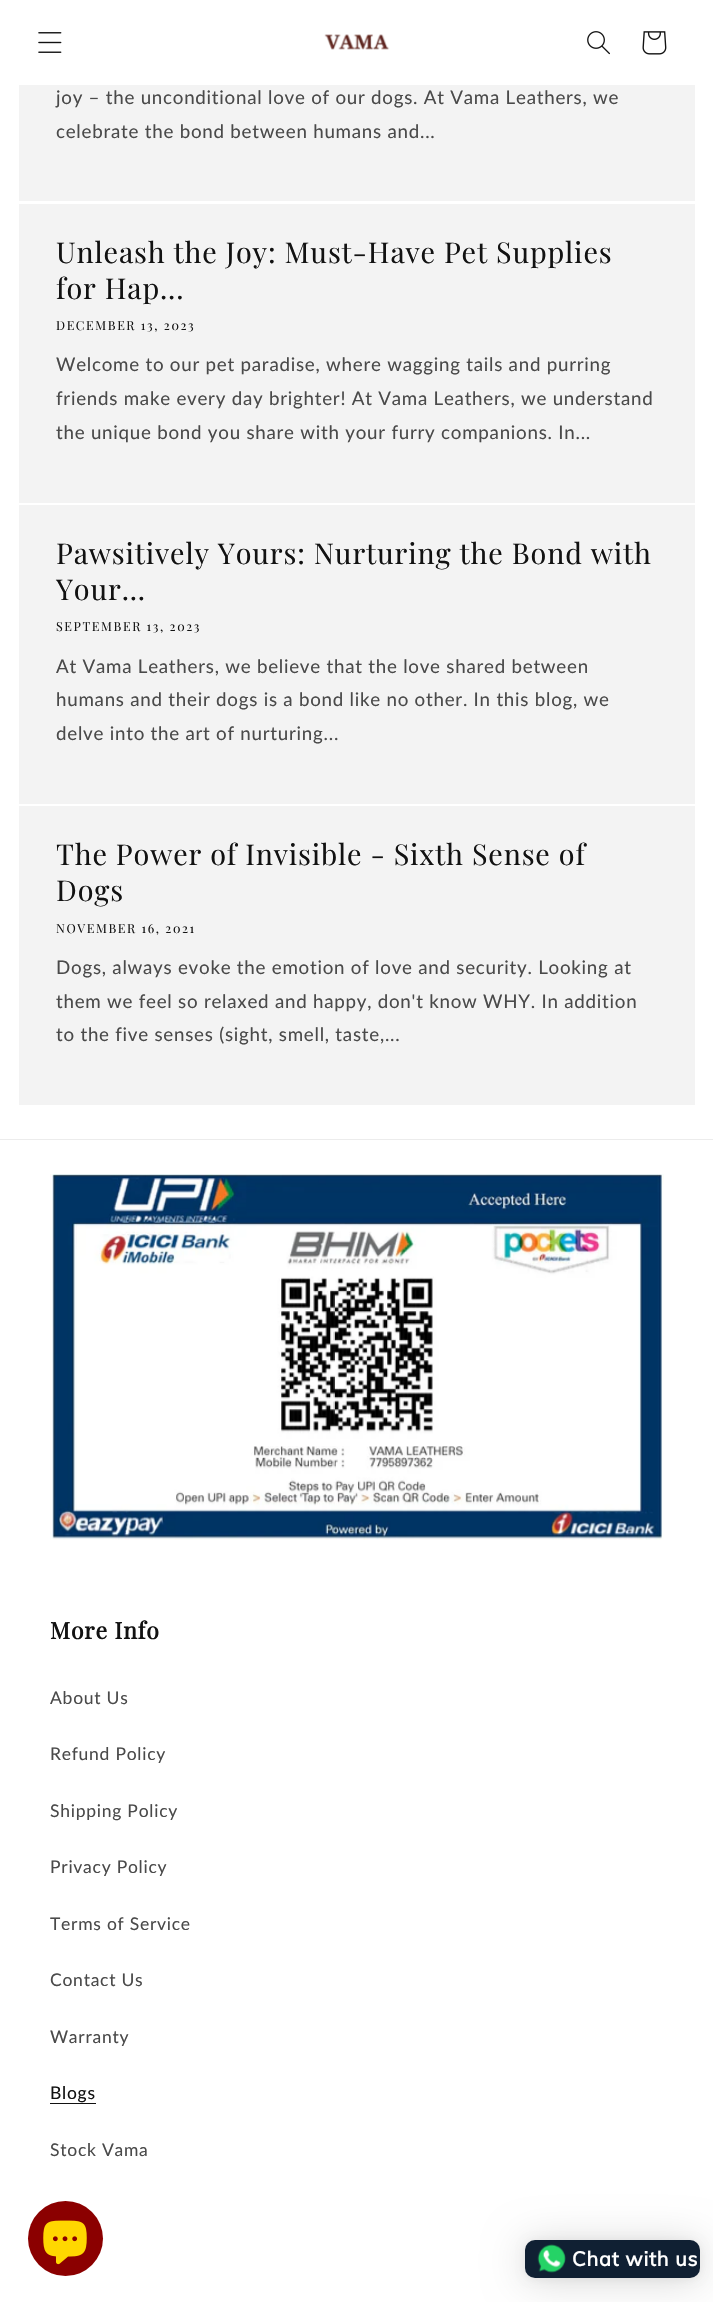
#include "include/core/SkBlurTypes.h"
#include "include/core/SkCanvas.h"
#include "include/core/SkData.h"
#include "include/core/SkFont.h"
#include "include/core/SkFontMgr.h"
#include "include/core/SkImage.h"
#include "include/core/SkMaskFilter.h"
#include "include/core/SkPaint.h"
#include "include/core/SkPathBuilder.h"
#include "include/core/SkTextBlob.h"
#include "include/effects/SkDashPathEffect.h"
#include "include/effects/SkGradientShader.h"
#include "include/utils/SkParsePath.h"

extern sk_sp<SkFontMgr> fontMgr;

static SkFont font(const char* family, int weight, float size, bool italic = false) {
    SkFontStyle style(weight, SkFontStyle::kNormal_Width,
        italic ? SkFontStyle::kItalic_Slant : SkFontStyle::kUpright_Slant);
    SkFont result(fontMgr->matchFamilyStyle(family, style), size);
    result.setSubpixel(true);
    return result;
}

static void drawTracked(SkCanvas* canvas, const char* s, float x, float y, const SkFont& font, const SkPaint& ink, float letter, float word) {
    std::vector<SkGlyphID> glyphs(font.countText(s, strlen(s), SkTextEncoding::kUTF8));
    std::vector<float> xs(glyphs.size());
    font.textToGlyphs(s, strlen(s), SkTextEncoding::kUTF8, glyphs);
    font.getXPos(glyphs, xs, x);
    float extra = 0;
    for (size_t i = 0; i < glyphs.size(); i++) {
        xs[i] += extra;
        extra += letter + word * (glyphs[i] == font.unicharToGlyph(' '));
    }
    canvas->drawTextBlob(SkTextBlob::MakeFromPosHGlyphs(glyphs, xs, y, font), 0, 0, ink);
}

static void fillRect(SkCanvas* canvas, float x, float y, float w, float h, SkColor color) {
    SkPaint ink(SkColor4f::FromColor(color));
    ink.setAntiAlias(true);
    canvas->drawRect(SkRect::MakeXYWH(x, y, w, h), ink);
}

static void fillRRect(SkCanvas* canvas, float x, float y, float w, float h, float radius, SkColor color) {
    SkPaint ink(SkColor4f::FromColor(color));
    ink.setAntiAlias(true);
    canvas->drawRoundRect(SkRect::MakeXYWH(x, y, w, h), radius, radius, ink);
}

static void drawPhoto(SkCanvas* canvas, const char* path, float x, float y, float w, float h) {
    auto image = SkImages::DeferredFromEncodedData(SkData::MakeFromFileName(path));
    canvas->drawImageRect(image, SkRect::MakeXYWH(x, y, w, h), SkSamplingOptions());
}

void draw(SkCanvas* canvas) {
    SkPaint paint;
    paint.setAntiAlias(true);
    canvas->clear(0xFFFFFFFF);
    drawPhoto(canvas, "assets/img1.png", 38, 32, 24, 21);
    drawPhoto(canvas, "assets/img2.png", 324, 34, 66, 16);
    drawPhoto(canvas, "assets/img3.png", 587, 31, 23, 24);
    drawPhoto(canvas, "assets/img4.png", 642, 31, 25, 24);
    fillRect(canvas, 19, 85, 676, 116, 0xFFF3F3F3);
    SkFont font1 = font("Lato", 400, 18.75f);
    paint.setColor(0xFF4A4A4A);
    drawTracked(canvas, "joy – the unconditional love of our dogs. At Vama Leathers, we", 56, 104, font1, paint, 0.75f, 0);
    drawTracked(canvas, "celebrate the bond between humans and...", 56, 138, font1, paint, 0.75f, 0);
    fillRect(canvas, 19, 204, 676, 299, 0xFFF3F3F3);
    SkFont font2 = font("Playfair Display", 400, 28.75f);
    paint.setColor(0xFF121212);
    drawTracked(canvas, "Unleash the Joy: Must-Have Pet Supplies", 56, 263, font2, paint, 0.85f, 0);
    drawTracked(canvas, "for Hap...", 56, 299, font2, paint, 0.85f, 0);
    SkFont font3 = font("Playfair Display", 400, 12.5f);
    drawTracked(canvas, "DECEMBER 13, 2023", 56, 330, font3, paint, 1.6f, 0);
    paint.setColor(0xFF4A4A4A);
    drawTracked(canvas, "Welcome to our pet paradise, where wagging tails and purring", 56, 371, font1, paint, 0.75f, 0);
    drawTracked(canvas, "friends make every day brighter! At Vama Leathers, we understand", 56, 405, font1, paint, 0.75f, 0);
    drawTracked(canvas, "the unique bond you share with your furry companions. In...", 56, 439, font1, paint, 0.75f, 0);
    fillRect(canvas, 19, 505, 676, 299, 0xFFF3F3F3);
    paint.setColor(0xFF121212);
    drawTracked(canvas, "Pawsitively Yours: Nurturing the Bond with", 56, 564, font2, paint, 0.85f, 0);
    drawTracked(canvas, "Your...", 56, 600, font2, paint, 0.85f, 0);
    drawTracked(canvas, "SEPTEMBER 13, 2023", 56, 631, font3, paint, 1.6f, 0);
    paint.setColor(0xFF4A4A4A);
    drawTracked(canvas, "At Vama Leathers, we believe that the love shared between", 56, 673, font1, paint, 0.75f, 0);
    drawTracked(canvas, "humans and their dogs is a bond like no other. In this blog, we", 56, 706, font1, paint, 0.75f, 0);
    drawTracked(canvas, "delve into the art of nurturing...", 56, 740, font1, paint, 0.75f, 0);
    fillRect(canvas, 19, 806, 676, 299, 0xFFF3F3F3);
    paint.setColor(0xFF121212);
    drawTracked(canvas, "The Power of Invisible - Sixth Sense of", 56, 865, font2, paint, 0.85f, 0);
    drawTracked(canvas, "Dogs", 56, 901, font2, paint, 0.85f, 0);
    drawTracked(canvas, "NOVEMBER 16, 2021", 56, 933, font3, paint, 1.6f, 0);
    paint.setColor(0xFF4A4A4A);
    drawTracked(canvas, "Dogs, always evoke the emotion of love and security. Looking at", 56, 974, font1, paint, 0.75f, 0);
    drawTracked(canvas, "them we feel so relaxed and happy, don't know WHY. In addition", 56, 1008, font1, paint, 0.75f, 0);
    drawTracked(canvas, "to the five senses (sight, smell, taste,...", 56, 1041, font1, paint, 0.75f, 0);
    fillRect(canvas, 0, 1139, 713, 1, 0xFFECECEC);
    drawPhoto(canvas, "assets/img5.png", 50, 1174, 614, 366);
    SkFont font4 = font("Playfair Display", 700, 23);
    paint.setColor(0xFF121212);
    drawTracked(canvas, "More Info", 50, 1639, font4, paint, 0.85f, 0);
    SkFont font5 = font("Lato", 400, 17.5f);
    paint.setColor(0xFF4A4A4A);
    drawTracked(canvas, "About Us", 50, 1704, font5, paint, 0.75f, 0);
    drawTracked(canvas, "Refund Policy", 50, 1760, font5, paint, 0.75f, 0);
    drawTracked(canvas, "Shipping Policy", 50, 1817, font5, paint, 0.75f, 0);
    drawTracked(canvas, "Privacy Policy", 50, 1873, font5, paint, 0.75f, 0);
    drawTracked(canvas, "Terms of Service", 50, 1930, font5, paint, 0.75f, 0);
    drawTracked(canvas, "Contact Us", 50, 1986, font5, paint, 0.75f, 0);
    drawTracked(canvas, "Warranty", 50, 2043, font5, paint, 0.75f, 0);
    paint.setColor(0xFF121212);
    drawTracked(canvas, "Blogs", 50, 2099, font5, paint, 0.75f, 0);
    fillRect(canvas, 50, 2103, 46, 1, 0xFF121212);
    paint.setColor(0xFF4A4A4A);
    drawTracked(canvas, "Stock Vama", 50, 2156, font5, paint, 0.75f, 0);
    paint.setColor(0xFF8B0000);
    canvas->drawCircle(65.5f, 2238.5f, 37.5f, paint);
    drawPhoto(canvas, "assets/img6.png", 43, 2220, 44, 45);
    paint.setColor(0x29000000);
    paint.setMaskFilter(SkMaskFilter::MakeBlur(kNormal_SkBlurStyle, 20));
    canvas->drawRoundRect(SkRect::MakeXYWH(525, 2243, 175, 37), 10, 10, paint);
    paint.setMaskFilter(nullptr);
    paint.setColor(0x0F000000);
    paint.setMaskFilter(SkMaskFilter::MakeBlur(kNormal_SkBlurStyle, 4));
    canvas->drawRoundRect(SkRect::MakeXYWH(525, 2241, 175, 38), 10, 10, paint);
    paint.setMaskFilter(nullptr);
    fillRRect(canvas, 525, 2240, 175, 38, 10, 0xFF102033);
    drawPhoto(canvas, "assets/img7.png", 537, 2244, 29, 29);
    SkFont font6 = font("Muli", 700, 20);
    paint.setColor(0xFFFFFFFF);
    drawTracked(canvas, "Chat with us", 572, 2266, font6, paint, 0.75f, 0);
}
